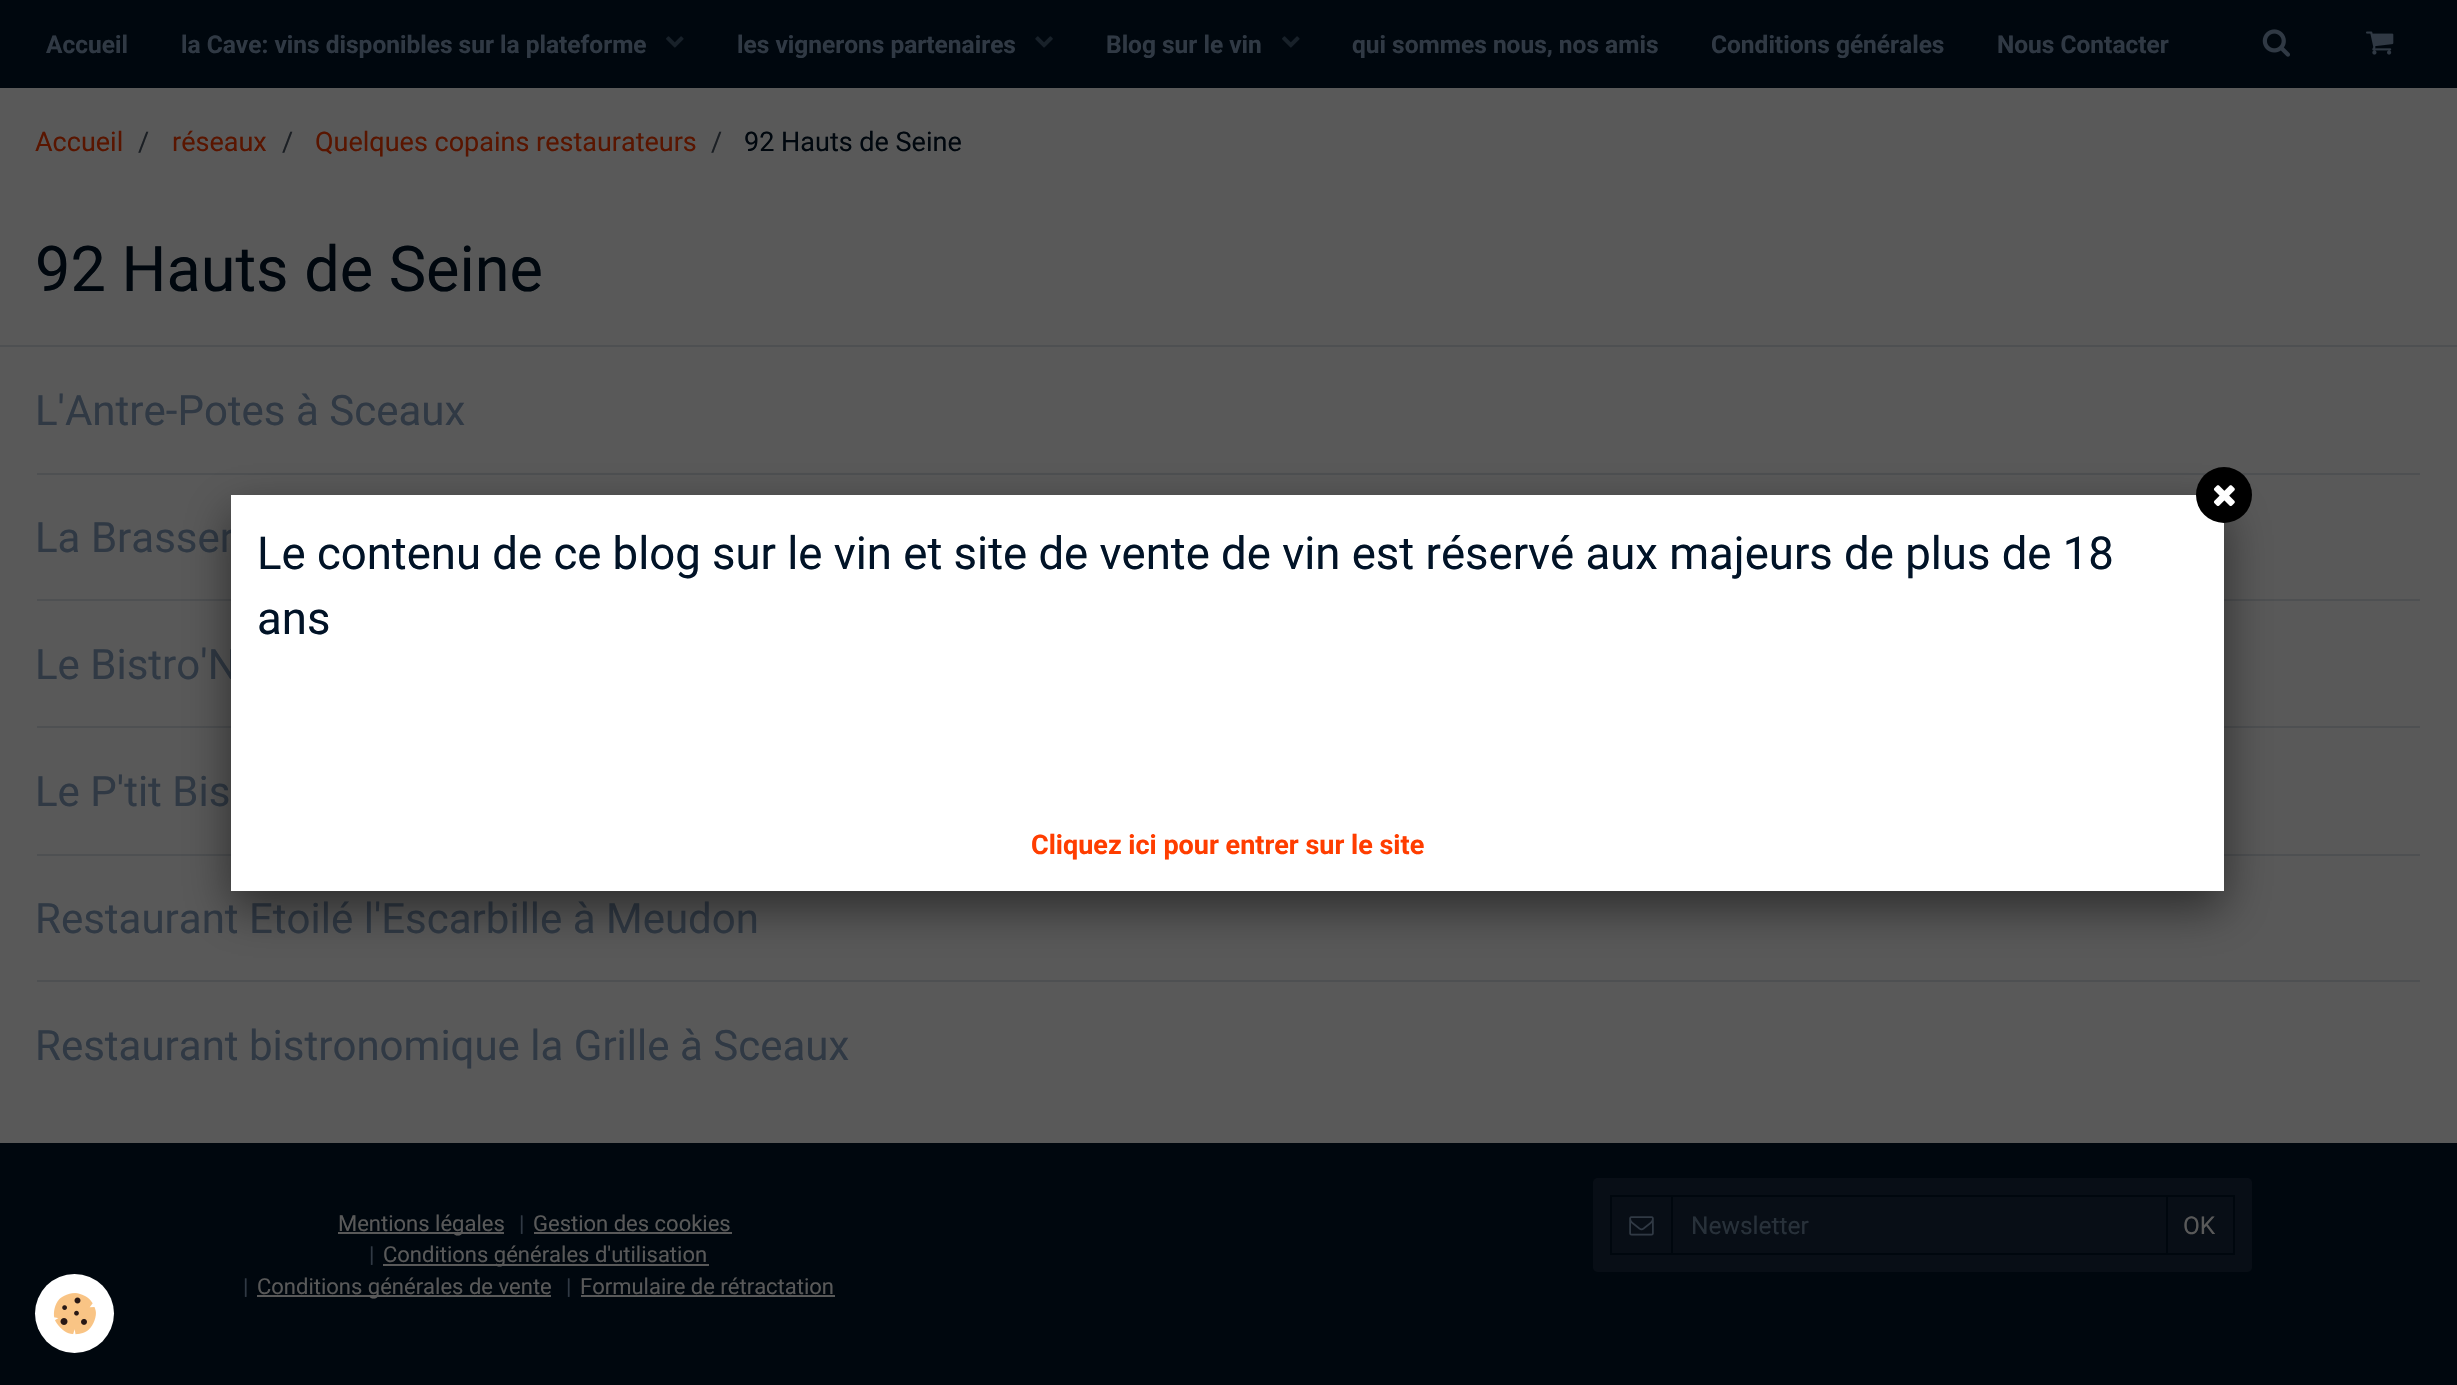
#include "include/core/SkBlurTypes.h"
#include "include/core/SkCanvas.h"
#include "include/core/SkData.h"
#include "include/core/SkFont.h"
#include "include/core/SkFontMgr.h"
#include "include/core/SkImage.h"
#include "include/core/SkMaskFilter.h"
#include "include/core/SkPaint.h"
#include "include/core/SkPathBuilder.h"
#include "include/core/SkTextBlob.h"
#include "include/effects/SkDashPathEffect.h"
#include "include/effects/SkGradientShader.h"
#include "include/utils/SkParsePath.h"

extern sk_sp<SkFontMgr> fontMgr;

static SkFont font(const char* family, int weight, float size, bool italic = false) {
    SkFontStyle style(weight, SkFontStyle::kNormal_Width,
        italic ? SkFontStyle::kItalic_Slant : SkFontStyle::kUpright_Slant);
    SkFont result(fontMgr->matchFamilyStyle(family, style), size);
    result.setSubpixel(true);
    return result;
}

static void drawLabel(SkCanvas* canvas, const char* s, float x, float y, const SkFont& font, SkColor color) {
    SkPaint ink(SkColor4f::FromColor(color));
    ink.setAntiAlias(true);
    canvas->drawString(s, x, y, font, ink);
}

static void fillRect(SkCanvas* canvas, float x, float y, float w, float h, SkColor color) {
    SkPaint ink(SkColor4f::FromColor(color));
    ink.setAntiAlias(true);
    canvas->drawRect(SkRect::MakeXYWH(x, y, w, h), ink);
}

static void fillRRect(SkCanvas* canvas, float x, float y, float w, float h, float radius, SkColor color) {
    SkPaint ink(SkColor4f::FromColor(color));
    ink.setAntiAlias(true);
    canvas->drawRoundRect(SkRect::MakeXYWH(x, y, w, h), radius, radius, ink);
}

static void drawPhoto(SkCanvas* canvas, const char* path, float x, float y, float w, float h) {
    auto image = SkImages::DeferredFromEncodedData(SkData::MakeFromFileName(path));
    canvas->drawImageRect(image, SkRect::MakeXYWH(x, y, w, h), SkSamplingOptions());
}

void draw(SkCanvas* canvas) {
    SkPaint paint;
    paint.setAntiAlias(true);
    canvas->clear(0xFF595959);
    fillRect(canvas, 0, 0, 2457, 88, 0xFF00070E);
    SkFont font1 = font("Roboto", 700, 24.5f);
    drawLabel(canvas, "Accueil", 46, 53, font1, 0xFF303944);
    drawLabel(canvas, "la Cave: vins disponibles sur la plateforme", 181, 53, font1, 0xFF303944);
    drawPhoto(canvas, "assets/img1.png", 666, 36, 18, 12);
    drawLabel(canvas, "les vignerons partenaires", 737, 53, font1, 0xFF303944);
    drawPhoto(canvas, "assets/img2.png", 1035, 36, 18, 12);
    drawLabel(canvas, "Blog sur le vin", 1106, 53, font1, 0xFF303944);
    drawPhoto(canvas, "assets/img1.png", 1282, 36, 18, 12);
    drawLabel(canvas, "qui sommes nous, nos amis", 1352, 53, font1, 0xFF303944);
    drawLabel(canvas, "Conditions générales", 1711, 53, font1, 0xFF303944);
    drawLabel(canvas, "Nous Contacter", 1997, 53, font1, 0xFF303944);
    drawPhoto(canvas, "assets/img3.png", 2262, 29, 28, 28);
    drawPhoto(canvas, "assets/img4.png", 2366, 31, 28, 24);
    SkFont font2 = font("Roboto", 400, 27);
    drawLabel(canvas, "Accueil", 35, 151, font2, 0xFF591500);
    drawLabel(canvas, "/", 138, 151, font2, 0xFF1B1F24);
    drawLabel(canvas, "réseaux", 172, 151, font2, 0xFF591500);
    drawLabel(canvas, "/", 282, 151, font2, 0xFF1B1F24);
    drawLabel(canvas, "Quelques copains restaurateurs", 315, 151, font2, 0xFF591500);
    drawLabel(canvas, "/", 711, 151, font2, 0xFF1B1F24);
    drawLabel(canvas, "92 Hauts de Seine", 744, 151, font2, 0xFF00070E);
    fillRect(canvas, 0, 345, 2457, 2, 0xFF4E5052);
    SkFont font3 = font("Roboto", 400, 63);
    drawLabel(canvas, "92 Hauts de Seine", 35, 291, font3, 0xFF00070E);
    fillRect(canvas, 37, 473, 2383, 2, 0xFF4E5052);
    SkFont font4 = font("Roboto", 400, 42);
    drawLabel(canvas, "L'Antre-Potes à Sceaux", 35, 425, font4, 0xFF303944);
    fillRect(canvas, 37, 599, 2383, 2, 0xFF4E5052);
    drawLabel(canvas, "La Brasser", 35, 552, font4, 0xFF303944);
    fillRect(canvas, 37, 726, 2383, 2, 0xFF4E5052);
    drawLabel(canvas, "Le Bistro'N", 35, 679, font4, 0xFF303944);
    fillRect(canvas, 37, 854, 2383, 2, 0xFF4E5052);
    drawLabel(canvas, "Le P'tit Bis", 35, 806, font4, 0xFF303944);
    fillRect(canvas, 37, 980, 2383, 2, 0xFF4E5052);
    drawLabel(canvas, "Restaurant Etoilé l'Escarbille à Meudon", 35, 933, font4, 0xFF303944);
    drawLabel(canvas, "Restaurant bistronomique la Grille à Sceaux", 35, 1060, font4, 0xFF303944);
    paint.setColor(0x80000000);
    paint.setMaskFilter(SkMaskFilter::MakeBlur(kNormal_SkBlurStyle, 22));
    canvas->drawRect(SkRect::MakeXYWH(231, 513, 1993, 395), paint);
    paint.setMaskFilter(nullptr);
    fillRect(canvas, 231, 495, 1993, 396, 0xFFFFFFFF);
    paint.setColor(0xFF000000);
    canvas->drawCircle(2224, 495, 28, paint);
    drawPhoto(canvas, "assets/img5.png", 2213, 485, 22, 22);
    SkFont font5 = font("Roboto", 400, 45.5f);
    drawLabel(canvas, "Le contenu de ce blog sur le vin et site de vente de vin est réservé aux majeurs de plus de 18", 257, 569, font5, 0xFF011327);
    drawLabel(canvas, "ans", 257, 634, font5, 0xFF011327);
    SkFont font6 = font("Roboto", 700, 27);
    drawLabel(canvas, "Cliquez ici pour entrer sur le site", 1031, 854, font6, 0xFFFF3D00);
    fillRect(canvas, 0, 1143, 2457, 242, 0xFF00070E);
    fillRect(canvas, 338, 1232, 166, 2, 0xFF595959);
    SkFont font7 = font("Roboto", 400, 22);
    drawLabel(canvas, "Mentions légales", 338, 1231, font7, 0xFF595959);
    drawLabel(canvas, "|", 519, 1231, font7, 0xFF303944);
    drawLabel(canvas, "Gestion des cookies", 533, 1231, font7, 0xFF595959);
    fillRect(canvas, 534, 1232, 198, 2, 0xFF595959);
    drawLabel(canvas, "|", 369, 1262, font7, 0xFF303944);
    fillRect(canvas, 383, 1264, 326, 2, 0xFF595959);
    drawLabel(canvas, "Conditions générales d'utilisation", 383, 1262, font7, 0xFF595959);
    drawLabel(canvas, "|", 243, 1294, font7, 0xFF303944);
    fillRect(canvas, 257, 1295, 294, 2, 0xFF595959);
    drawLabel(canvas, "Conditions générales de vente", 257, 1294, font7, 0xFF595959);
    drawLabel(canvas, "|", 566, 1294, font7, 0xFF303944);
    drawLabel(canvas, "Formulaire de rétractation", 580, 1294, font7, 0xFF595959);
    fillRect(canvas, 581, 1295, 254, 2, 0xFF595959);
    fillRRect(canvas, 1593, 1178, 659, 94, 5, 0xFF080E16);
    paint.setStroke(true);
    paint.setStrokeWidth(2);
    paint.setColor(0xFF00070E);
    canvas->drawRect(SkRect::MakeXYWH(1611, 1196, 61, 58), paint);
    drawPhoto(canvas, "assets/img6.png", 1629, 1216, 25, 20);
    canvas->drawRect(SkRect::MakeXYWH(1672, 1196, 495, 58), paint);
    SkFont font8 = font("Roboto", 400, 24.5f);
    drawLabel(canvas, "Newsletter", 1691, 1234, font8, 0xFF28313A);
    fillRect(canvas, 2167, 1195, 68, 2, 0xFF00070E);
    fillRect(canvas, 2233, 1195, 2, 60, 0xFF00070E);
    fillRect(canvas, 2167, 1253, 68, 2, 0xFF00070E);
    drawLabel(canvas, "OK", 2183, 1234, font8, 0xFF595959);
    paint.setStroke(false);
    paint.setColor(0xFFFFFFFF);
    canvas->drawCircle(74.5f, 1313.5f, 39.5f, paint);
    drawPhoto(canvas, "assets/img7.png", 53, 1293, 43, 42);
}
